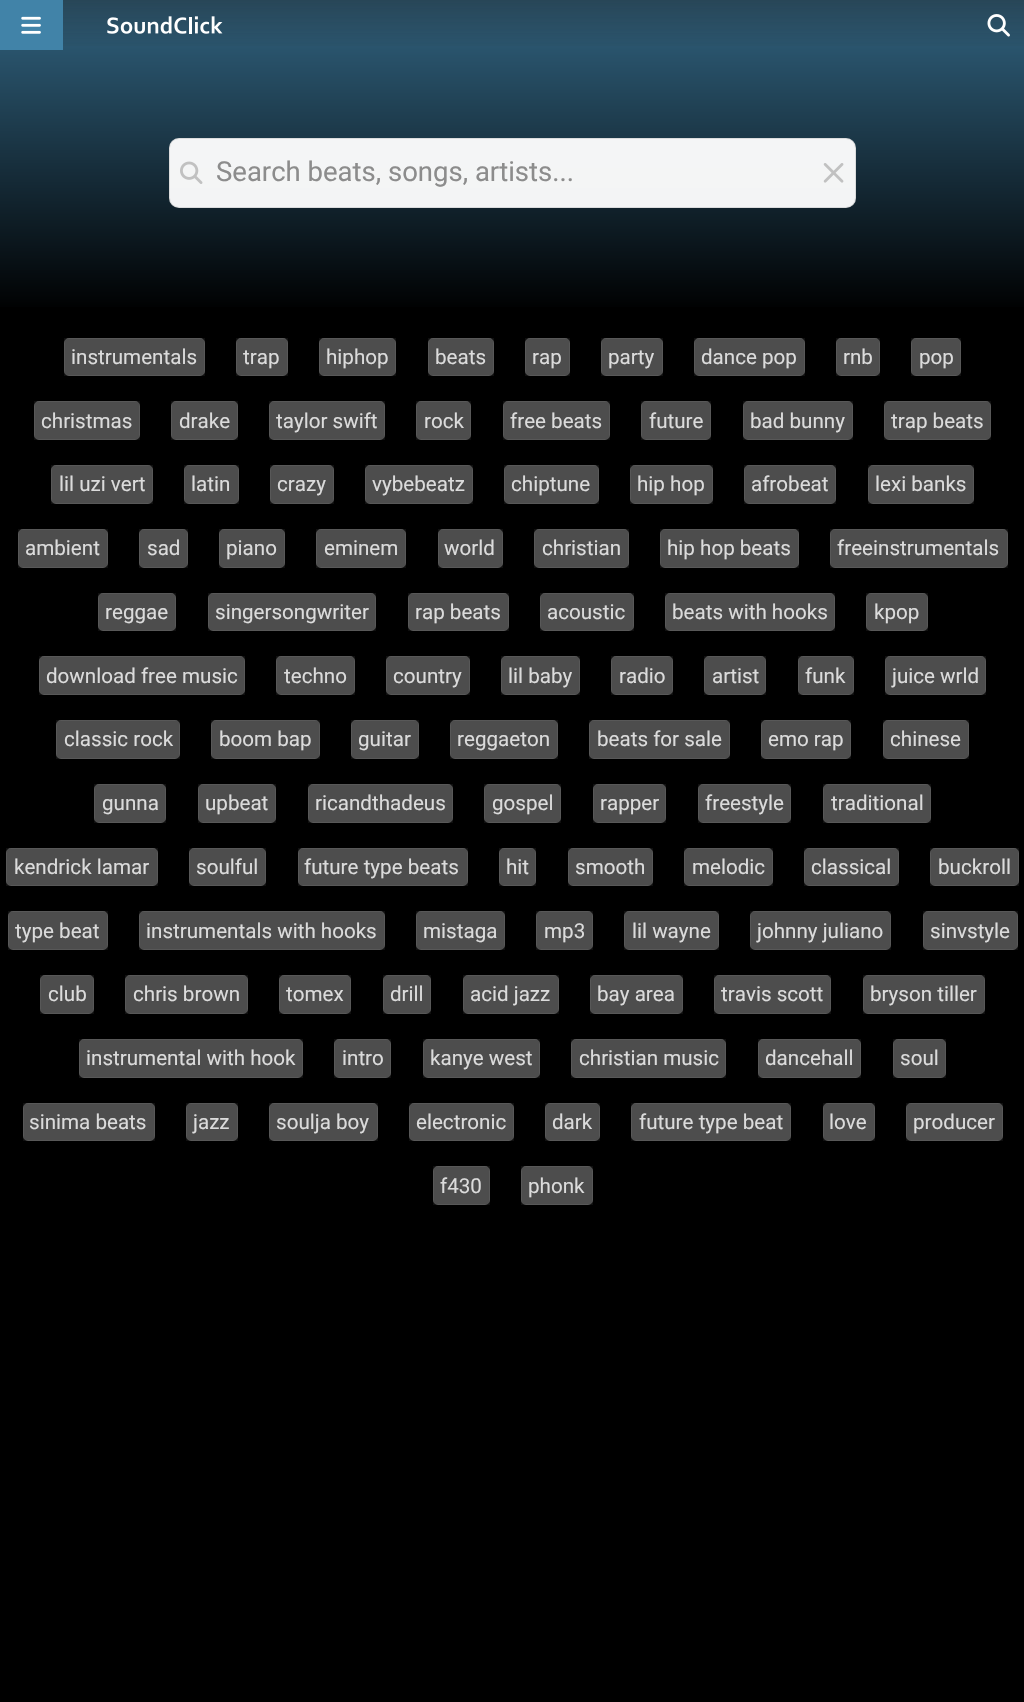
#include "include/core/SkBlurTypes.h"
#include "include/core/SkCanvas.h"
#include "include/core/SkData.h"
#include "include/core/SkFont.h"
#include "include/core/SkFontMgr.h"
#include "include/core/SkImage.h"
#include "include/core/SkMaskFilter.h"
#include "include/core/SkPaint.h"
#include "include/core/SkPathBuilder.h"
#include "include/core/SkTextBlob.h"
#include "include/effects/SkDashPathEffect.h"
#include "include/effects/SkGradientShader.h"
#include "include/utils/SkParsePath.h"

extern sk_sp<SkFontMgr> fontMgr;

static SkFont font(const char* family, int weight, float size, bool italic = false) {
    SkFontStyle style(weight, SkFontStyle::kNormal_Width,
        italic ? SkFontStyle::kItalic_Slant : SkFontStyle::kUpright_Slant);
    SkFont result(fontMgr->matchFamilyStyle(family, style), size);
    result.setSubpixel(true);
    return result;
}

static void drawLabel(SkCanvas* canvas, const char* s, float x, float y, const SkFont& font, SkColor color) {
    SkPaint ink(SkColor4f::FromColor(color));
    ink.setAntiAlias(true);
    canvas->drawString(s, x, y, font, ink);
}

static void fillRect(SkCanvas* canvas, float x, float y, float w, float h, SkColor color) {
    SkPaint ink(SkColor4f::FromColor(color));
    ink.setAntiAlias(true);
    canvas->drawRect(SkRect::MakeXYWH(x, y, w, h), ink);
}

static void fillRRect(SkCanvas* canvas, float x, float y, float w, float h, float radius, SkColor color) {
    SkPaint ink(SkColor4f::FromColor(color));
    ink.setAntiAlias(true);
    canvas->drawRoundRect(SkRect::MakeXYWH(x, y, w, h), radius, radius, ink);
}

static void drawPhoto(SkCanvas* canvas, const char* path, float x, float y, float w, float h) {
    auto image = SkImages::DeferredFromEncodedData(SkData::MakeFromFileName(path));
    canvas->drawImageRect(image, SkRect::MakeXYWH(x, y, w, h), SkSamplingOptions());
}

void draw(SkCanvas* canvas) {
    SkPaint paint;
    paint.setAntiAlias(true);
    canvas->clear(0xFF000000);
    {
        const SkColor colors[] = {0xFF000000, 0xFF316380};
        const float stops[] = {0, 1};
        const SkPoint ends[] = {{513, 313}, {513, 0}};
        paint.setShader(SkGradientShader::MakeLinear(ends, colors, stops, 2, SkTileMode::kClamp));
        paint.setAlpha(255);
    }
    canvas->drawRect(SkRect::MakeXYWH(0, 0, 1024, 307), paint);
    {
        const SkColor colors[] = {0x00191919, 0x66191919};
        const float stops[] = {0, 1};
        const SkPoint ends[] = {{513, 50}, {513, 0}};
        paint.setShader(SkGradientShader::MakeLinear(ends, colors, stops, 2, SkTileMode::kClamp));
        paint.setAlpha(255);
    }
    canvas->drawRect(SkRect::MakeXYWH(63, 0, 961, 46), paint);
    fillRect(canvas, 0, 0, 63, 50, 0xFF4183A8);
    drawPhoto(canvas, "assets/img1.png", 21, 16, 20, 18);
    drawPhoto(canvas, "assets/img2.png", 107, 16, 116, 18);
    drawPhoto(canvas, "assets/img3.png", 987, 14, 23, 23);
    fillRRect(canvas, 169, 138, 687, 70, 10, 0xF2FFFFFF);
    paint.setStroke(true);
    paint.setStrokeWidth(1);
    paint.setShader(nullptr);
    paint.setColor(0x1A000000);
    canvas->drawRoundRect(SkRect::MakeXYWH(169.5f, 138.5f, 686, 69), 9.5f, 9.5f, paint);
    drawPhoto(canvas, "assets/img4.png", 180, 161, 23, 23);
    SkFont font1 = font("Roboto", 400, 27.5f);
    drawLabel(canvas, "Search beats, songs, artists...", 216, 181, font1, 0xFF8C8C8C);
    drawPhoto(canvas, "assets/img5.png", 823, 163, 21, 20);
    fillRRect(canvas, 64, 338, 141, 38, 5, 0xFF4D4D4D);
    paint.setColor(0x0FFFFFFF);
    canvas->drawRect(SkRect::MakeXYWH(64.5f, 338.5f, 140, 37), paint);
    SkFont font2 = font("Roboto", 400, 20.6f);
    drawLabel(canvas, "instrumentals", 71, 364, font2, 0xFFDBDBDB);
    fillRRect(canvas, 236, 338, 52, 38, 5, 0xFF4D4D4D);
    canvas->drawRect(SkRect::MakeXYWH(236.5f, 338.5f, 51, 37), paint);
    drawLabel(canvas, "trap", 243, 364, font2, 0xFFDBDBDB);
    fillRRect(canvas, 319, 338, 77, 38, 5, 0xFF4D4D4D);
    canvas->drawRect(SkRect::MakeXYWH(319.5f, 338.5f, 76, 37), paint);
    drawLabel(canvas, "hiphop", 326, 364, font2, 0xFFDBDBDB);
    fillRRect(canvas, 428, 338, 66, 38, 5, 0xFF4D4D4D);
    canvas->drawRect(SkRect::MakeXYWH(428.5f, 338.5f, 65, 37), paint);
    drawLabel(canvas, "beats", 435, 364, font2, 0xFFDBDBDB);
    fillRRect(canvas, 525, 338, 45, 38, 5, 0xFF4D4D4D);
    canvas->drawRect(SkRect::MakeXYWH(525.5f, 338.5f, 44, 37), paint);
    drawLabel(canvas, "rap", 532, 364, font2, 0xFFDBDBDB);
    fillRRect(canvas, 601, 338, 62, 38, 5, 0xFF4D4D4D);
    canvas->drawRect(SkRect::MakeXYWH(601.5f, 338.5f, 61, 37), paint);
    drawLabel(canvas, "party", 608, 364, font2, 0xFFDBDBDB);
    fillRRect(canvas, 694, 338, 111, 38, 5, 0xFF4D4D4D);
    canvas->drawRect(SkRect::MakeXYWH(694.5f, 338.5f, 110, 37), paint);
    drawLabel(canvas, "dance pop", 701, 364, font2, 0xFFDBDBDB);
    fillRRect(canvas, 836, 338, 44, 38, 5, 0xFF4D4D4D);
    canvas->drawRect(SkRect::MakeXYWH(836.5f, 338.5f, 43, 37), paint);
    drawLabel(canvas, "rnb", 843, 364, font2, 0xFFDBDBDB);
    fillRRect(canvas, 911, 338, 50, 38, 5, 0xFF4D4D4D);
    canvas->drawRect(SkRect::MakeXYWH(911.5f, 338.5f, 49, 37), paint);
    drawLabel(canvas, "pop", 919, 364, font2, 0xFFDBDBDB);
    fillRRect(canvas, 34, 401, 106, 39, 5, 0xFF4D4D4D);
    canvas->drawRect(SkRect::MakeXYWH(34.5f, 401.5f, 105, 38), paint);
    drawLabel(canvas, "christmas", 41, 428, font2, 0xFFDBDBDB);
    fillRRect(canvas, 171, 401, 67, 39, 5, 0xFF4D4D4D);
    canvas->drawRect(SkRect::MakeXYWH(171.5f, 401.5f, 66, 38), paint);
    drawLabel(canvas, "drake", 179, 428, font2, 0xFFDBDBDB);
    fillRRect(canvas, 269, 401, 116, 39, 5, 0xFF4D4D4D);
    canvas->drawRect(SkRect::MakeXYWH(269.5f, 401.5f, 115, 38), paint);
    drawLabel(canvas, "taylor swift", 276, 428, font2, 0xFFDBDBDB);
    fillRRect(canvas, 416, 401, 55, 39, 5, 0xFF4D4D4D);
    canvas->drawRect(SkRect::MakeXYWH(416.5f, 401.5f, 54, 38), paint);
    drawLabel(canvas, "rock", 424, 428, font2, 0xFFDBDBDB);
    fillRRect(canvas, 503, 401, 107, 39, 5, 0xFF4D4D4D);
    canvas->drawRect(SkRect::MakeXYWH(503.5f, 401.5f, 106, 38), paint);
    drawLabel(canvas, "free beats", 510, 428, font2, 0xFFDBDBDB);
    fillRRect(canvas, 641, 401, 70, 39, 5, 0xFF4D4D4D);
    canvas->drawRect(SkRect::MakeXYWH(641.5f, 401.5f, 69, 38), paint);
    drawLabel(canvas, "future", 649, 428, font2, 0xFFDBDBDB);
    fillRRect(canvas, 743, 401, 110, 39, 5, 0xFF4D4D4D);
    canvas->drawRect(SkRect::MakeXYWH(743.5f, 401.5f, 109, 38), paint);
    drawLabel(canvas, "bad bunny", 750, 428, font2, 0xFFDBDBDB);
    fillRRect(canvas, 884, 401, 107, 39, 5, 0xFF4D4D4D);
    canvas->drawRect(SkRect::MakeXYWH(884.5f, 401.5f, 106, 38), paint);
    drawLabel(canvas, "trap beats", 891, 428, font2, 0xFFDBDBDB);
    fillRRect(canvas, 51, 465, 102, 39, 5, 0xFF4D4D4D);
    canvas->drawRect(SkRect::MakeXYWH(51.5f, 465.5f, 101, 38), paint);
    drawLabel(canvas, "lil uzi vert", 59, 491, font2, 0xFFDBDBDB);
    fillRRect(canvas, 184, 465, 55, 39, 5, 0xFF4D4D4D);
    canvas->drawRect(SkRect::MakeXYWH(184.5f, 465.5f, 54, 38), paint);
    drawLabel(canvas, "latin", 191, 491, font2, 0xFFDBDBDB);
    fillRRect(canvas, 270, 465, 64, 39, 5, 0xFF4D4D4D);
    canvas->drawRect(SkRect::MakeXYWH(270.5f, 465.5f, 63, 38), paint);
    drawLabel(canvas, "crazy", 277, 491, font2, 0xFFDBDBDB);
    fillRRect(canvas, 365, 465, 108, 39, 5, 0xFF4D4D4D);
    canvas->drawRect(SkRect::MakeXYWH(365.5f, 465.5f, 107, 38), paint);
    drawLabel(canvas, "vybebeatz", 372, 491, font2, 0xFFDBDBDB);
    fillRRect(canvas, 504, 465, 95, 39, 5, 0xFF4D4D4D);
    canvas->drawRect(SkRect::MakeXYWH(504.5f, 465.5f, 94, 38), paint);
    drawLabel(canvas, "chiptune", 511, 491, font2, 0xFFDBDBDB);
    fillRRect(canvas, 630, 465, 83, 39, 5, 0xFF4D4D4D);
    canvas->drawRect(SkRect::MakeXYWH(630.5f, 465.5f, 82, 38), paint);
    drawLabel(canvas, "hip hop", 637, 491, font2, 0xFFDBDBDB);
    fillRRect(canvas, 744, 465, 92, 39, 5, 0xFF4D4D4D);
    canvas->drawRect(SkRect::MakeXYWH(744.5f, 465.5f, 91, 38), paint);
    drawLabel(canvas, "afrobeat", 751, 491, font2, 0xFFDBDBDB);
    fillRRect(canvas, 868, 465, 106, 39, 5, 0xFF4D4D4D);
    canvas->drawRect(SkRect::MakeXYWH(868.5f, 465.5f, 105, 38), paint);
    drawLabel(canvas, "lexi banks", 875, 491, font2, 0xFFDBDBDB);
    fillRRect(canvas, 18, 529, 90, 39, 5, 0xFF4D4D4D);
    canvas->drawRect(SkRect::MakeXYWH(18.5f, 529.5f, 89, 38), paint);
    drawLabel(canvas, "ambient", 25, 555, font2, 0xFFDBDBDB);
    fillRRect(canvas, 139, 529, 49, 39, 5, 0xFF4D4D4D);
    canvas->drawRect(SkRect::MakeXYWH(139.5f, 529.5f, 48, 38), paint);
    drawLabel(canvas, "sad", 147, 555, font2, 0xFFDBDBDB);
    fillRRect(canvas, 219, 529, 66, 39, 5, 0xFF4D4D4D);
    canvas->drawRect(SkRect::MakeXYWH(219.5f, 529.5f, 65, 38), paint);
    drawLabel(canvas, "piano", 226, 555, font2, 0xFFDBDBDB);
    fillRRect(canvas, 316, 529, 90, 39, 5, 0xFF4D4D4D);
    canvas->drawRect(SkRect::MakeXYWH(316.5f, 529.5f, 89, 38), paint);
    drawLabel(canvas, "eminem", 324, 555, font2, 0xFFDBDBDB);
    fillRRect(canvas, 438, 529, 65, 39, 5, 0xFF4D4D4D);
    canvas->drawRect(SkRect::MakeXYWH(438.5f, 529.5f, 64, 38), paint);
    drawLabel(canvas, "world", 444, 555, font2, 0xFFDBDBDB);
    fillRRect(canvas, 534, 529, 95, 39, 5, 0xFF4D4D4D);
    canvas->drawRect(SkRect::MakeXYWH(534.5f, 529.5f, 94, 38), paint);
    drawLabel(canvas, "christian", 542, 555, font2, 0xFFDBDBDB);
    fillRRect(canvas, 660, 529, 139, 39, 5, 0xFF4D4D4D);
    canvas->drawRect(SkRect::MakeXYWH(660.5f, 529.5f, 138, 38), paint);
    drawLabel(canvas, "hip hop beats", 667, 555, font2, 0xFFDBDBDB);
    fillRRect(canvas, 830, 529, 178, 39, 5, 0xFF4D4D4D);
    canvas->drawRect(SkRect::MakeXYWH(830.5f, 529.5f, 177, 38), paint);
    drawLabel(canvas, "freeinstrumentals", 837, 555, font2, 0xFFDBDBDB);
    fillRRect(canvas, 98, 593, 78, 38, 5, 0xFF4D4D4D);
    canvas->drawRect(SkRect::MakeXYWH(98.5f, 593.5f, 77, 37), paint);
    drawLabel(canvas, "reggae", 105, 619, font2, 0xFFDBDBDB);
    fillRRect(canvas, 208, 593, 168, 38, 5, 0xFF4D4D4D);
    canvas->drawRect(SkRect::MakeXYWH(208.5f, 593.5f, 167, 37), paint);
    drawLabel(canvas, "singersongwriter", 215, 619, font2, 0xFFDBDBDB);
    fillRRect(canvas, 408, 593, 101, 38, 5, 0xFF4D4D4D);
    canvas->drawRect(SkRect::MakeXYWH(408.5f, 593.5f, 100, 37), paint);
    drawLabel(canvas, "rap beats", 415, 619, font2, 0xFFDBDBDB);
    fillRRect(canvas, 540, 593, 94, 38, 5, 0xFF4D4D4D);
    canvas->drawRect(SkRect::MakeXYWH(540.5f, 593.5f, 93, 37), paint);
    drawLabel(canvas, "acoustic", 547, 619, font2, 0xFFDBDBDB);
    fillRRect(canvas, 665, 593, 170, 38, 5, 0xFF4D4D4D);
    canvas->drawRect(SkRect::MakeXYWH(665.5f, 593.5f, 169, 37), paint);
    drawLabel(canvas, "beats with hooks", 672, 619, font2, 0xFFDBDBDB);
    fillRRect(canvas, 866, 593, 62, 38, 5, 0xFF4D4D4D);
    canvas->drawRect(SkRect::MakeXYWH(866.5f, 593.5f, 61, 37), paint);
    drawLabel(canvas, "kpop", 874, 619, font2, 0xFFDBDBDB);
    fillRRect(canvas, 39, 656, 206, 39, 5, 0xFF4D4D4D);
    canvas->drawRect(SkRect::MakeXYWH(39.5f, 656.5f, 205, 38), paint);
    drawLabel(canvas, "download free music", 46, 683, font2, 0xFFDBDBDB);
    fillRRect(canvas, 276, 656, 79, 39, 5, 0xFF4D4D4D);
    canvas->drawRect(SkRect::MakeXYWH(276.5f, 656.5f, 78, 38), paint);
    drawLabel(canvas, "techno", 284, 683, font2, 0xFFDBDBDB);
    fillRRect(canvas, 386, 656, 84, 39, 5, 0xFF4D4D4D);
    canvas->drawRect(SkRect::MakeXYWH(386.5f, 656.5f, 83, 38), paint);
    drawLabel(canvas, "country", 393, 683, font2, 0xFFDBDBDB);
    fillRRect(canvas, 501, 656, 79, 39, 5, 0xFF4D4D4D);
    canvas->drawRect(SkRect::MakeXYWH(501.5f, 656.5f, 78, 38), paint);
    drawLabel(canvas, "lil baby", 508, 683, font2, 0xFFDBDBDB);
    fillRRect(canvas, 611, 656, 62, 39, 5, 0xFF4D4D4D);
    canvas->drawRect(SkRect::MakeXYWH(611.5f, 656.5f, 61, 38), paint);
    drawLabel(canvas, "radio", 619, 683, font2, 0xFFDBDBDB);
    fillRRect(canvas, 704, 656, 62, 39, 5, 0xFF4D4D4D);
    canvas->drawRect(SkRect::MakeXYWH(704.5f, 656.5f, 61, 38), paint);
    drawLabel(canvas, "artist", 712, 683, font2, 0xFFDBDBDB);
    fillRRect(canvas, 798, 656, 56, 39, 5, 0xFF4D4D4D);
    canvas->drawRect(SkRect::MakeXYWH(798.5f, 656.5f, 55, 38), paint);
    drawLabel(canvas, "funk", 805, 683, font2, 0xFFDBDBDB);
    fillRRect(canvas, 885, 656, 101, 39, 5, 0xFF4D4D4D);
    canvas->drawRect(SkRect::MakeXYWH(885.5f, 656.5f, 100, 38), paint);
    drawLabel(canvas, "juice wrld", 892, 683, font2, 0xFFDBDBDB);
    fillRRect(canvas, 56, 720, 124, 39, 5, 0xFF4D4D4D);
    canvas->drawRect(SkRect::MakeXYWH(56.5f, 720.5f, 123, 38), paint);
    drawLabel(canvas, "classic rock", 64, 746, font2, 0xFFDBDBDB);
    fillRRect(canvas, 211, 720, 109, 39, 5, 0xFF4D4D4D);
    canvas->drawRect(SkRect::MakeXYWH(211.5f, 720.5f, 108, 38), paint);
    drawLabel(canvas, "boom bap", 219, 746, font2, 0xFFDBDBDB);
    fillRRect(canvas, 351, 720, 68, 39, 5, 0xFF4D4D4D);
    canvas->drawRect(SkRect::MakeXYWH(351.5f, 720.5f, 67, 38), paint);
    drawLabel(canvas, "guitar", 358, 746, font2, 0xFFDBDBDB);
    fillRRect(canvas, 450, 720, 108, 39, 5, 0xFF4D4D4D);
    canvas->drawRect(SkRect::MakeXYWH(450.5f, 720.5f, 107, 38), paint);
    drawLabel(canvas, "reggaeton", 457, 746, font2, 0xFFDBDBDB);
    fillRRect(canvas, 589, 720, 141, 39, 5, 0xFF4D4D4D);
    canvas->drawRect(SkRect::MakeXYWH(589.5f, 720.5f, 140, 38), paint);
    drawLabel(canvas, "beats for sale", 597, 746, font2, 0xFFDBDBDB);
    fillRRect(canvas, 761, 720, 90, 39, 5, 0xFF4D4D4D);
    canvas->drawRect(SkRect::MakeXYWH(761.5f, 720.5f, 89, 38), paint);
    drawLabel(canvas, "emo rap", 768, 746, font2, 0xFFDBDBDB);
    fillRRect(canvas, 883, 720, 86, 39, 5, 0xFF4D4D4D);
    canvas->drawRect(SkRect::MakeXYWH(883.5f, 720.5f, 85, 38), paint);
    drawLabel(canvas, "chinese", 890, 746, font2, 0xFFDBDBDB);
    fillRRect(canvas, 94, 784, 72, 39, 5, 0xFF4D4D4D);
    canvas->drawRect(SkRect::MakeXYWH(94.5f, 784.5f, 71, 38), paint);
    drawLabel(canvas, "gunna", 102, 810, font2, 0xFFDBDBDB);
    fillRRect(canvas, 198, 784, 78, 39, 5, 0xFF4D4D4D);
    canvas->drawRect(SkRect::MakeXYWH(198.5f, 784.5f, 77, 38), paint);
    drawLabel(canvas, "upbeat", 205, 810, font2, 0xFFDBDBDB);
    fillRRect(canvas, 308, 784, 145, 39, 5, 0xFF4D4D4D);
    canvas->drawRect(SkRect::MakeXYWH(308.5f, 784.5f, 144, 38), paint);
    drawLabel(canvas, "ricandthadeus", 315, 810, font2, 0xFFDBDBDB);
    fillRRect(canvas, 484, 784, 77, 39, 5, 0xFF4D4D4D);
    canvas->drawRect(SkRect::MakeXYWH(484.5f, 784.5f, 76, 38), paint);
    drawLabel(canvas, "gospel", 492, 810, font2, 0xFFDBDBDB);
    fillRRect(canvas, 593, 784, 73, 39, 5, 0xFF4D4D4D);
    canvas->drawRect(SkRect::MakeXYWH(593.5f, 784.5f, 72, 38), paint);
    drawLabel(canvas, "rapper", 600, 810, font2, 0xFFDBDBDB);
    fillRRect(canvas, 698, 784, 93, 39, 5, 0xFF4D4D4D);
    canvas->drawRect(SkRect::MakeXYWH(698.5f, 784.5f, 92, 38), paint);
    drawLabel(canvas, "freestyle", 705, 810, font2, 0xFFDBDBDB);
    fillRRect(canvas, 823, 784, 108, 39, 5, 0xFF4D4D4D);
    canvas->drawRect(SkRect::MakeXYWH(823.5f, 784.5f, 107, 38), paint);
    drawLabel(canvas, "traditional", 831, 810, font2, 0xFFDBDBDB);
    fillRRect(canvas, 6, 848, 152, 38, 5, 0xFF4D4D4D);
    canvas->drawRect(SkRect::MakeXYWH(6.5f, 848.5f, 151, 37), paint);
    drawLabel(canvas, "kendrick lamar", 14, 874, font2, 0xFFDBDBDB);
    fillRRect(canvas, 189, 848, 77, 38, 5, 0xFF4D4D4D);
    canvas->drawRect(SkRect::MakeXYWH(189.5f, 848.5f, 76, 37), paint);
    drawLabel(canvas, "soulful", 196, 874, font2, 0xFFDBDBDB);
    fillRRect(canvas, 298, 848, 170, 38, 5, 0xFF4D4D4D);
    canvas->drawRect(SkRect::MakeXYWH(298.5f, 848.5f, 169, 37), paint);
    drawLabel(canvas, "future type beats", 304, 874, font2, 0xFFDBDBDB);
    fillRRect(canvas, 499, 848, 37, 38, 5, 0xFF4D4D4D);
    canvas->drawRect(SkRect::MakeXYWH(499.5f, 848.5f, 36, 37), paint);
    drawLabel(canvas, "hit", 506, 874, font2, 0xFFDBDBDB);
    fillRRect(canvas, 568, 848, 85, 38, 5, 0xFF4D4D4D);
    canvas->drawRect(SkRect::MakeXYWH(568.5f, 848.5f, 84, 37), paint);
    drawLabel(canvas, "smooth", 575, 874, font2, 0xFFDBDBDB);
    fillRRect(canvas, 684, 848, 89, 38, 5, 0xFF4D4D4D);
    canvas->drawRect(SkRect::MakeXYWH(684.5f, 848.5f, 88, 37), paint);
    drawLabel(canvas, "melodic", 692, 874, font2, 0xFFDBDBDB);
    fillRRect(canvas, 804, 848, 95, 38, 5, 0xFF4D4D4D);
    canvas->drawRect(SkRect::MakeXYWH(804.5f, 848.5f, 94, 37), paint);
    drawLabel(canvas, "classical", 811, 874, font2, 0xFFDBDBDB);
    fillRRect(canvas, 930, 848, 89, 38, 5, 0xFF4D4D4D);
    canvas->drawRect(SkRect::MakeXYWH(930.5f, 848.5f, 88, 37), paint);
    drawLabel(canvas, "buckroll", 938, 874, font2, 0xFFDBDBDB);
    fillRRect(canvas, 8, 911, 100, 39, 5, 0xFF4D4D4D);
    canvas->drawRect(SkRect::MakeXYWH(8.5f, 911.5f, 99, 38), paint);
    drawLabel(canvas, "type beat", 15, 938, font2, 0xFFDBDBDB);
    fillRRect(canvas, 139, 911, 246, 39, 5, 0xFF4D4D4D);
    canvas->drawRect(SkRect::MakeXYWH(139.5f, 911.5f, 245, 38), paint);
    drawLabel(canvas, "instrumentals with hooks", 146, 938, font2, 0xFFDBDBDB);
    fillRRect(canvas, 416, 911, 89, 39, 5, 0xFF4D4D4D);
    canvas->drawRect(SkRect::MakeXYWH(416.5f, 911.5f, 88, 38), paint);
    drawLabel(canvas, "mistaga", 423, 938, font2, 0xFFDBDBDB);
    fillRRect(canvas, 536, 911, 57, 39, 5, 0xFF4D4D4D);
    canvas->drawRect(SkRect::MakeXYWH(536.5f, 911.5f, 56, 38), paint);
    drawLabel(canvas, "mp3", 544, 938, font2, 0xFFDBDBDB);
    fillRRect(canvas, 624, 911, 95, 39, 5, 0xFF4D4D4D);
    canvas->drawRect(SkRect::MakeXYWH(624.5f, 911.5f, 94, 38), paint);
    drawLabel(canvas, "lil wayne", 632, 938, font2, 0xFFDBDBDB);
    fillRRect(canvas, 750, 911, 141, 39, 5, 0xFF4D4D4D);
    canvas->drawRect(SkRect::MakeXYWH(750.5f, 911.5f, 140, 38), paint);
    drawLabel(canvas, "johnny juliano", 757, 938, font2, 0xFFDBDBDB);
    fillRRect(canvas, 923, 911, 95, 39, 5, 0xFF4D4D4D);
    canvas->drawRect(SkRect::MakeXYWH(923.5f, 911.5f, 94, 38), paint);
    drawLabel(canvas, "sinvstyle", 930, 938, font2, 0xFFDBDBDB);
    fillRRect(canvas, 40, 975, 54, 39, 5, 0xFF4D4D4D);
    canvas->drawRect(SkRect::MakeXYWH(40.5f, 975.5f, 53, 38), paint);
    drawLabel(canvas, "club", 48, 1001, font2, 0xFFDBDBDB);
    fillRRect(canvas, 125, 975, 123, 39, 5, 0xFF4D4D4D);
    canvas->drawRect(SkRect::MakeXYWH(125.5f, 975.5f, 122, 38), paint);
    drawLabel(canvas, "chris brown", 133, 1001, font2, 0xFFDBDBDB);
    fillRRect(canvas, 279, 975, 72, 39, 5, 0xFF4D4D4D);
    canvas->drawRect(SkRect::MakeXYWH(279.5f, 975.5f, 71, 38), paint);
    drawLabel(canvas, "tomex", 286, 1001, font2, 0xFFDBDBDB);
    fillRRect(canvas, 383, 975, 48, 39, 5, 0xFF4D4D4D);
    canvas->drawRect(SkRect::MakeXYWH(383.5f, 975.5f, 47, 38), paint);
    drawLabel(canvas, "drill", 390, 1001, font2, 0xFFDBDBDB);
    fillRRect(canvas, 463, 975, 96, 39, 5, 0xFF4D4D4D);
    canvas->drawRect(SkRect::MakeXYWH(463.5f, 975.5f, 95, 38), paint);
    drawLabel(canvas, "acid jazz", 470, 1001, font2, 0xFFDBDBDB);
    fillRRect(canvas, 590, 975, 93, 39, 5, 0xFF4D4D4D);
    canvas->drawRect(SkRect::MakeXYWH(590.5f, 975.5f, 92, 38), paint);
    drawLabel(canvas, "bay area", 597, 1001, font2, 0xFFDBDBDB);
    fillRRect(canvas, 714, 975, 117, 39, 5, 0xFF4D4D4D);
    canvas->drawRect(SkRect::MakeXYWH(714.5f, 975.5f, 116, 38), paint);
    drawLabel(canvas, "travis scott", 721, 1001, font2, 0xFFDBDBDB);
    fillRRect(canvas, 863, 975, 122, 39, 5, 0xFF4D4D4D);
    canvas->drawRect(SkRect::MakeXYWH(863.5f, 975.5f, 121, 38), paint);
    drawLabel(canvas, "bryson tiller", 870, 1001, font2, 0xFFDBDBDB);
    fillRRect(canvas, 79, 1039, 224, 39, 5, 0xFF4D4D4D);
    canvas->drawRect(SkRect::MakeXYWH(79.5f, 1039.5f, 223, 38), paint);
    drawLabel(canvas, "instrumental with hook", 86, 1065, font2, 0xFFDBDBDB);
    fillRRect(canvas, 334, 1039, 57, 39, 5, 0xFF4D4D4D);
    canvas->drawRect(SkRect::MakeXYWH(334.5f, 1039.5f, 56, 38), paint);
    drawLabel(canvas, "intro", 342, 1065, font2, 0xFFDBDBDB);
    fillRRect(canvas, 423, 1039, 117, 39, 5, 0xFF4D4D4D);
    canvas->drawRect(SkRect::MakeXYWH(423.5f, 1039.5f, 116, 38), paint);
    drawLabel(canvas, "kanye west", 430, 1065, font2, 0xFFDBDBDB);
    fillRRect(canvas, 571, 1039, 155, 39, 5, 0xFF4D4D4D);
    canvas->drawRect(SkRect::MakeXYWH(571.5f, 1039.5f, 154, 38), paint);
    drawLabel(canvas, "christian music", 579, 1065, font2, 0xFFDBDBDB);
    fillRRect(canvas, 758, 1039, 103, 39, 5, 0xFF4D4D4D);
    canvas->drawRect(SkRect::MakeXYWH(758.5f, 1039.5f, 102, 38), paint);
    drawLabel(canvas, "dancehall", 765, 1065, font2, 0xFFDBDBDB);
    fillRRect(canvas, 893, 1039, 53, 39, 5, 0xFF4D4D4D);
    canvas->drawRect(SkRect::MakeXYWH(893.5f, 1039.5f, 52, 38), paint);
    drawLabel(canvas, "soul", 900, 1065, font2, 0xFFDBDBDB);
    fillRRect(canvas, 23, 1103, 132, 38, 5, 0xFF4D4D4D);
    canvas->drawRect(SkRect::MakeXYWH(23.5f, 1103.5f, 131, 37), paint);
    drawLabel(canvas, "sinima beats", 29, 1129, font2, 0xFFDBDBDB);
    fillRRect(canvas, 186, 1103, 52, 38, 5, 0xFF4D4D4D);
    canvas->drawRect(SkRect::MakeXYWH(186.5f, 1103.5f, 51, 37), paint);
    drawLabel(canvas, "jazz", 193, 1129, font2, 0xFFDBDBDB);
    fillRRect(canvas, 269, 1103, 109, 38, 5, 0xFF4D4D4D);
    canvas->drawRect(SkRect::MakeXYWH(269.5f, 1103.5f, 108, 37), paint);
    drawLabel(canvas, "soulja boy", 276, 1129, font2, 0xFFDBDBDB);
    fillRRect(canvas, 409, 1103, 105, 38, 5, 0xFF4D4D4D);
    canvas->drawRect(SkRect::MakeXYWH(409.5f, 1103.5f, 104, 37), paint);
    drawLabel(canvas, "electronic", 416, 1129, font2, 0xFFDBDBDB);
    fillRRect(canvas, 545, 1103, 55, 38, 5, 0xFF4D4D4D);
    canvas->drawRect(SkRect::MakeXYWH(545.5f, 1103.5f, 54, 37), paint);
    drawLabel(canvas, "dark", 552, 1129, font2, 0xFFDBDBDB);
    fillRRect(canvas, 631, 1103, 160, 38, 5, 0xFF4D4D4D);
    canvas->drawRect(SkRect::MakeXYWH(631.5f, 1103.5f, 159, 37), paint);
    drawLabel(canvas, "future type beat", 639, 1129, font2, 0xFFDBDBDB);
    fillRRect(canvas, 823, 1103, 52, 38, 5, 0xFF4D4D4D);
    canvas->drawRect(SkRect::MakeXYWH(823.5f, 1103.5f, 51, 37), paint);
    drawLabel(canvas, "love", 829, 1129, font2, 0xFFDBDBDB);
    fillRRect(canvas, 906, 1103, 97, 38, 5, 0xFF4D4D4D);
    canvas->drawRect(SkRect::MakeXYWH(906.5f, 1103.5f, 96, 37), paint);
    drawLabel(canvas, "producer", 913, 1129, font2, 0xFFDBDBDB);
    fillRRect(canvas, 433, 1166, 57, 39, 5, 0xFF4D4D4D);
    canvas->drawRect(SkRect::MakeXYWH(433.5f, 1166.5f, 56, 38), paint);
    drawLabel(canvas, "f430", 440, 1193, font2, 0xFFDBDBDB);
    fillRRect(canvas, 521, 1166, 72, 39, 5, 0xFF4D4D4D);
    canvas->drawRect(SkRect::MakeXYWH(521.5f, 1166.5f, 71, 38), paint);
    drawLabel(canvas, "phonk", 528, 1193, font2, 0xFFDBDBDB);
}
